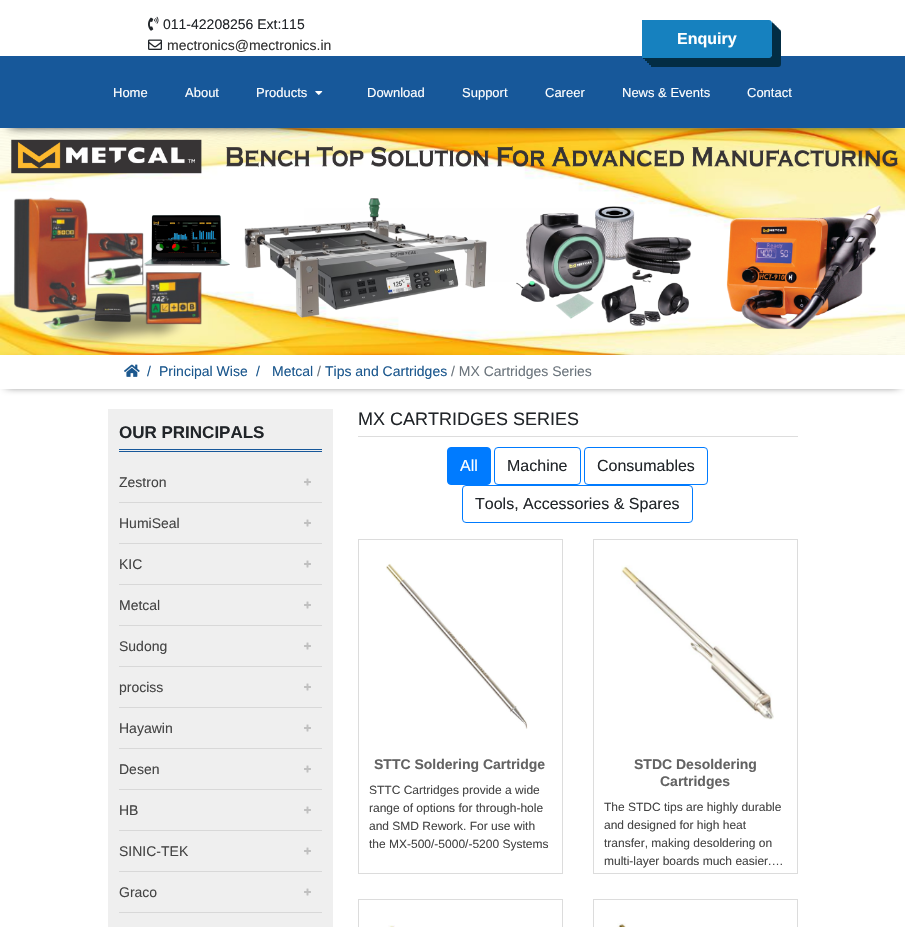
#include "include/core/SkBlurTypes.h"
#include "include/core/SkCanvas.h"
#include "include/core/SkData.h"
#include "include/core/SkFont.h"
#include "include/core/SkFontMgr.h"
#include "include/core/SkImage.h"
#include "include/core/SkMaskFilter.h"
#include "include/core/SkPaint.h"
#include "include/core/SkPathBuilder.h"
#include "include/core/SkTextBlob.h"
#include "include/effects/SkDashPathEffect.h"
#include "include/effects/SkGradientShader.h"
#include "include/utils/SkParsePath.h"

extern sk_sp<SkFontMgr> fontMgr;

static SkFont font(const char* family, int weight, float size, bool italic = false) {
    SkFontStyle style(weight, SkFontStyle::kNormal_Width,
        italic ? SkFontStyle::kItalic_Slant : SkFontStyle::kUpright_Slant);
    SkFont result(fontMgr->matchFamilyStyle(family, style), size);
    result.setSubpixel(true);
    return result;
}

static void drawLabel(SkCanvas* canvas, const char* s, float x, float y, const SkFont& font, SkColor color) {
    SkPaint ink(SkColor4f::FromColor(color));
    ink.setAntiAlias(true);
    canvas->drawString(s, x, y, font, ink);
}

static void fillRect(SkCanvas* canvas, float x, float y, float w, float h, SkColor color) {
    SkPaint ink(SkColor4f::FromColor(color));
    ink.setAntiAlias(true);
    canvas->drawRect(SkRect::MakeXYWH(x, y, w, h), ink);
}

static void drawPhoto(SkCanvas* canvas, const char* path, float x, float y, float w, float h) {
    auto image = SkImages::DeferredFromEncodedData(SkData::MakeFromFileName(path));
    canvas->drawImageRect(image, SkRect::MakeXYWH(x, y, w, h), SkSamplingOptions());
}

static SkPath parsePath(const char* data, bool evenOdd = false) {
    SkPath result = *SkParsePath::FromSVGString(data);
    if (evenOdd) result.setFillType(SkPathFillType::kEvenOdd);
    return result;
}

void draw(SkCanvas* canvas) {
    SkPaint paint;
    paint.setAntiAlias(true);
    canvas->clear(0xFFFFFFFF);
    drawPhoto(canvas, "assets/img1.png", 148, 16, 11, 15);
    SkFont font1 = font("Liberation Sans", 400, 14);
    drawLabel(canvas, "011-42208256 Ext:115", 163, 29, font1, 0xFF212529);
    drawPhoto(canvas, "assets/img2.png", 148, 39, 14, 11);
    drawLabel(canvas, "mectronics@mectronics.in", 167, 50, font1, 0xFF333333);
    drawPhoto(canvas, "assets/img4.png", 0, 128, 905, 227);
    paint.setColor(0xFF000000);
    paint.setMaskFilter(SkMaskFilter::MakeBlur(kNormal_SkBlurStyle, 5));
    canvas->drawRect(SkRect::MakeXYWH(10, 74, 885, 52), paint);
    paint.setMaskFilter(nullptr);
    fillRect(canvas, 0, 56, 905, 72, 0xFF17589A);
    paint.setColor(0xFF032D44);
    canvas->drawPath(parsePath("M651 58V67H778C780 67 781 66 781 64V32C781 30 780 29 778 29H772V55C772 57 771 58 769 58Z"), paint);
    canvas->drawPath(parsePath("M649 58V65H776C778 65 779 64 779 62V30C779 28 778 27 776 27H772V55C772 57 771 58 769 58Z"), paint);
    canvas->drawPath(parsePath("M647 58V63H774C776 63 777 62 777 60V28C777 26 776 25 774 25H772V55C772 57 771 58 769 58Z"), paint);
    canvas->drawPath(parsePath("M645 58V61H772C774 61 775 60 775 58V26C775 24 774 23 772 23V55C772 57 771 58 769 58Z"), paint);
    canvas->drawPath(parsePath("M643 58V59H770C772 59 773 58 773 56V24C773 23 772 22 772 21V23V55C772 57 771 58 769 58Z"), paint);
    paint.setColor(0xFF1681BF);
    canvas->drawPath(parsePath("M642 20H769C770.5 20 772 21.5 772 23V55C772 56.5 770.5 58 769 58H642Z"), paint);
    SkFont font2 = font("Liberation Sans", 700, 16);
    drawLabel(canvas, "Enquiry", 677, 44, font2, 0xFFFFFFFF);
    SkFont font3 = font("Liberation Sans", 400, 13);
    drawLabel(canvas, "Home", 113, 97, font3, 0xFFFFFFFF);
    drawLabel(canvas, "About", 185, 97, font3, 0xFFFFFFFF);
    drawLabel(canvas, "Products", 256, 97, font3, 0xFFFFFFFF);
    drawPhoto(canvas, "assets/img3.png", 315, 91, 8, 4);
    drawLabel(canvas, "Download", 367, 97, font3, 0xFFFFFFFF);
    drawLabel(canvas, "Support", 462, 97, font3, 0xFFFFFFFF);
    drawLabel(canvas, "Career", 545, 97, font3, 0xFFFFFFFF);
    drawLabel(canvas, "News & Events", 622, 97, font3, 0xFFFFFFFF);
    drawLabel(canvas, "Contact", 747, 97, font3, 0xFFFFFFFF);
    canvas->save();
    canvas->clipPath(parsePath("M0 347H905V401H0ZM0 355H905V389H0Z", true), true);
    paint.setColor(0xFF000000);
    paint.setMaskFilter(SkMaskFilter::MakeBlur(kNormal_SkBlurStyle, 5));
    canvas->drawRect(SkRect::MakeXYWH(6, 363, 893, 22), paint);
    paint.setMaskFilter(nullptr);
    canvas->restore();
    drawPhoto(canvas, "assets/img5.png", 124, 364, 16, 13);
    drawLabel(canvas, "/", 147, 376, font1, 0xFF1C588E);
    drawLabel(canvas, "Principal Wise", 159, 376, font1, 0xFF1C588E);
    drawLabel(canvas, "/", 256, 376, font1, 0xFF1C588E);
    drawLabel(canvas, "Metcal", 272, 376, font1, 0xFF1C588E);
    drawLabel(canvas, "/", 317, 376, font1, 0xFF6C757D);
    drawLabel(canvas, "Tips and Cartridges", 325, 376, font1, 0xFF1C588E);
    drawLabel(canvas, "/ MX Cartridges Series", 451, 376, font1, 0xFF6C757D);
    fillRect(canvas, 108, 409, 225, 518, 0xFFEFEFEF);
    fillRect(canvas, 119, 449, 203, 1, 0xFF17589A);
    fillRect(canvas, 119, 451, 203, 1, 0xFF17589A);
    SkFont font4 = font("Liberation Sans", 700, 17);
    drawLabel(canvas, "OUR PRINCIPALS", 119, 438, font4, 0xFF212529);
    fillRect(canvas, 119, 502, 203, 1, 0xFFD8D8D8);
    drawLabel(canvas, "Zestron", 119, 487, font1, 0xFF444444);
    drawPhoto(canvas, "assets/img6.png", 304, 478, 7, 8);
    fillRect(canvas, 119, 543, 203, 1, 0xFFD8D8D8);
    drawLabel(canvas, "HumiSeal", 119, 528, font1, 0xFF444444);
    drawPhoto(canvas, "assets/img6.png", 304, 519, 7, 8);
    fillRect(canvas, 119, 584, 203, 1, 0xFFD8D8D8);
    drawLabel(canvas, "KIC", 119, 569, font1, 0xFF444444);
    drawPhoto(canvas, "assets/img6.png", 304, 560, 7, 8);
    fillRect(canvas, 119, 625, 203, 1, 0xFFD8D8D8);
    drawLabel(canvas, "Metcal", 119, 610, font1, 0xFF444444);
    drawPhoto(canvas, "assets/img6.png", 304, 601, 7, 8);
    fillRect(canvas, 119, 666, 203, 1, 0xFFD8D8D8);
    drawLabel(canvas, "Sudong", 119, 651, font1, 0xFF444444);
    drawPhoto(canvas, "assets/img6.png", 304, 642, 7, 8);
    fillRect(canvas, 119, 707, 203, 1, 0xFFD8D8D8);
    drawLabel(canvas, "prociss", 119, 692, font1, 0xFF444444);
    drawPhoto(canvas, "assets/img6.png", 304, 683, 7, 8);
    fillRect(canvas, 119, 748, 203, 1, 0xFFD8D8D8);
    drawLabel(canvas, "Hayawin", 119, 733, font1, 0xFF444444);
    drawPhoto(canvas, "assets/img6.png", 304, 724, 7, 8);
    fillRect(canvas, 119, 789, 203, 1, 0xFFD8D8D8);
    drawLabel(canvas, "Desen", 119, 774, font1, 0xFF444444);
    drawPhoto(canvas, "assets/img6.png", 304, 765, 7, 8);
    fillRect(canvas, 119, 830, 203, 1, 0xFFD8D8D8);
    drawLabel(canvas, "HB", 119, 815, font1, 0xFF444444);
    drawPhoto(canvas, "assets/img6.png", 304, 806, 7, 8);
    fillRect(canvas, 119, 871, 203, 1, 0xFFD8D8D8);
    drawLabel(canvas, "SINIC-TEK", 119, 856, font1, 0xFF444444);
    drawPhoto(canvas, "assets/img6.png", 304, 847, 7, 8);
    fillRect(canvas, 119, 912, 203, 1, 0xFFD8D8D8);
    drawLabel(canvas, "Graco", 119, 897, font1, 0xFF444444);
    drawPhoto(canvas, "assets/img6.png", 304, 888, 7, 8);
    fillRect(canvas, 358, 436, 440, 1, 0xFFDDDDDD);
    SkFont font5 = font("Liberation Sans", 400, 18);
    drawLabel(canvas, "MX CARTRIDGES SERIES", 358, 425, font5, 0xFF212529);
    paint.setColor(0xFF007BFF);
    canvas->drawRoundRect(SkRect::MakeXYWH(447.5f, 447.5f, 43, 37), 3.5f, 3.5f, paint);
    paint.setStroke(true);
    paint.setStrokeWidth(1);
    canvas->drawRoundRect(SkRect::MakeXYWH(447.5f, 447.5f, 43, 37), 3.5f, 3.5f, paint);
    SkFont font6 = font("Liberation Sans", 400, 16);
    drawLabel(canvas, "All", 460, 471, font6, 0xFFFFFFFF);
    canvas->drawRoundRect(SkRect::MakeXYWH(494.5f, 447.5f, 86, 37), 3.5f, 3.5f, paint);
    drawLabel(canvas, "Machine", 507, 471, font6, 0xFF212529);
    canvas->drawRoundRect(SkRect::MakeXYWH(584.5f, 447.5f, 123, 37), 3.5f, 3.5f, paint);
    drawLabel(canvas, "Consumables", 597, 471, font6, 0xFF212529);
    canvas->drawRoundRect(SkRect::MakeXYWH(462.5f, 485.5f, 230, 37), 3.5f, 3.5f, paint);
    drawLabel(canvas, "Tools, Accessories & Spares", 475, 509, font6, 0xFF212529);
    paint.setColor(0xFFDCDCDC);
    canvas->drawRect(SkRect::MakeXYWH(358.5f, 539.5f, 204, 334), paint);
    drawPhoto(canvas, "assets/img7.png", 386, 563, 142, 166);
    SkFont font7 = font("Liberation Sans", 700, 14);
    drawLabel(canvas, "STTC Soldering Cartridge", 374, 769, font7, 0xFF636363);
    SkFont font8 = font("Liberation Sans", 400, 12);
    drawLabel(canvas, "STTC Cartridges provide a wide", 369, 794, font8, 0xFF444444);
    drawLabel(canvas, "range of options for through-hole", 369, 812, font8, 0xFF444444);
    drawLabel(canvas, "and SMD Rework. For use with", 369, 830, font8, 0xFF444444);
    drawLabel(canvas, "the MX-500/-5000/-5200 Systems", 369, 848, font8, 0xFF444444);
    canvas->drawRect(SkRect::MakeXYWH(593.5f, 539.5f, 204, 334), paint);
    drawPhoto(canvas, "assets/img8.png", 621, 565, 153, 155);
    drawLabel(canvas, "STDC Desoldering", 634, 769, font7, 0xFF636363);
    drawLabel(canvas, "Cartridges", 660, 786, font7, 0xFF636363);
    drawLabel(canvas, "The STDC tips are highly durable", 604, 811, font8, 0xFF444444);
    drawLabel(canvas, "and designed for high heat", 604, 829, font8, 0xFF444444);
    drawLabel(canvas, "transfer, making desoldering on", 604, 847, font8, 0xFF444444);
    drawLabel(canvas, "multi-layer boards much easier.…", 604, 865, font8, 0xFF444444);
    canvas->drawRect(SkRect::MakeXYWH(358.5f, 899.5f, 204, 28), paint);
    drawPhoto(canvas, "assets/img9.png", 388, 925, 7, 2);
    canvas->drawRect(SkRect::MakeXYWH(593.5f, 899.5f, 204, 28), paint);
    drawPhoto(canvas, "assets/img10.png", 617, 923, 9, 4);
}
